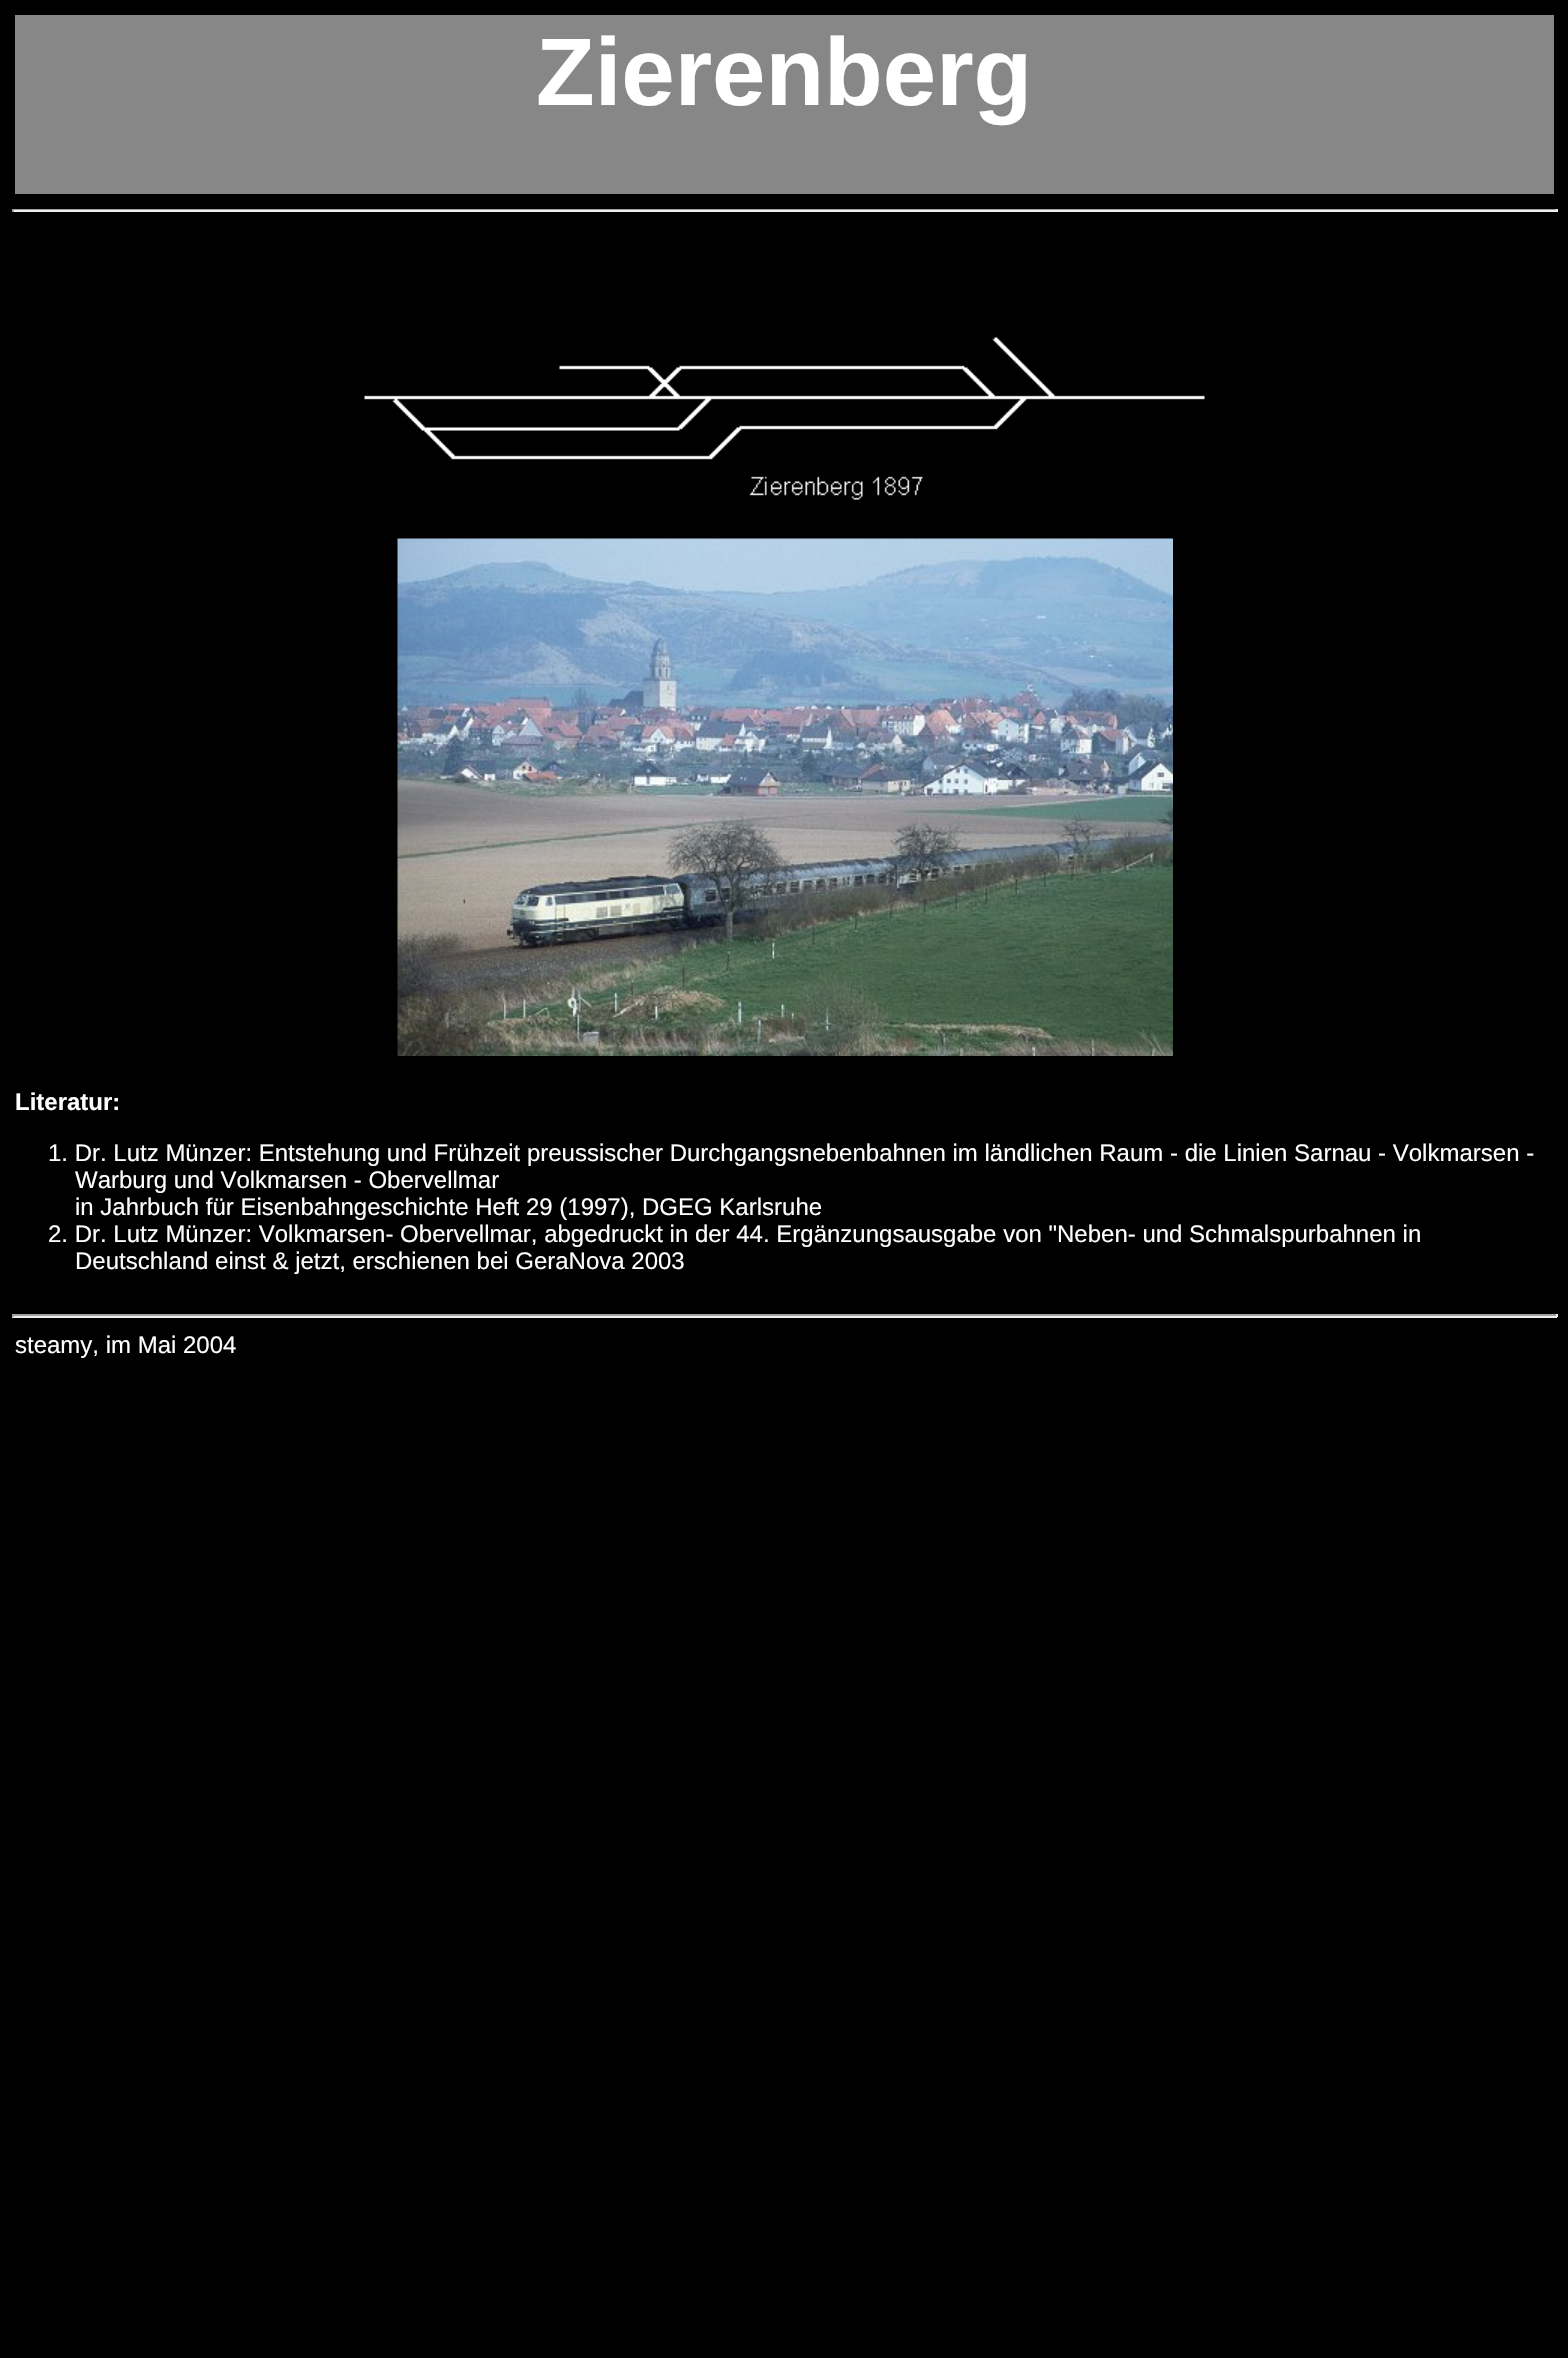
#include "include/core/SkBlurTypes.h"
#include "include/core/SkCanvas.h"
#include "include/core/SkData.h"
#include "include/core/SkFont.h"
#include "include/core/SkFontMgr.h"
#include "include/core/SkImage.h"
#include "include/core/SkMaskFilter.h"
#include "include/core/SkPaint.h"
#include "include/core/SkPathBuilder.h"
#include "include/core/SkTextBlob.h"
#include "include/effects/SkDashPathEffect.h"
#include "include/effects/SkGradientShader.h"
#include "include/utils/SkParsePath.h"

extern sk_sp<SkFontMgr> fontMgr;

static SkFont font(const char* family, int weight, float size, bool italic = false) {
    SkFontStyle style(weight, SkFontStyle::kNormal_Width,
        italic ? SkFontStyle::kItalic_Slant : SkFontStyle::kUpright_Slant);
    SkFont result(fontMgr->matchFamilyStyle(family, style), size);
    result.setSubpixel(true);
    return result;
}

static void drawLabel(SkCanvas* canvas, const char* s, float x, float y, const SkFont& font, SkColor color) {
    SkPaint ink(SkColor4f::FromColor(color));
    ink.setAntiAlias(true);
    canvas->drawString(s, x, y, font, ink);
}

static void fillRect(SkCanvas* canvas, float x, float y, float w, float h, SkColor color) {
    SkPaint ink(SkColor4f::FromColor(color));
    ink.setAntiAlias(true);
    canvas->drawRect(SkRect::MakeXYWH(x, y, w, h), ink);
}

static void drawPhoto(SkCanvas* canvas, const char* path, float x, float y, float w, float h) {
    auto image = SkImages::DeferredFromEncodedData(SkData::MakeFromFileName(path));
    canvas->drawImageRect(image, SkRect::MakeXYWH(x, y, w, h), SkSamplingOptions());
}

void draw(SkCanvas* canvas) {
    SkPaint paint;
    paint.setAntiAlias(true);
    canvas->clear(0xFF000000);
    fillRect(canvas, 15, 15, 1539, 179, 0xFF878787);
    SkFont font1 = font("Liberation Sans", 700, 96);
    drawLabel(canvas, "Zierenberg", 536, 105, font1, 0xFFFFFFFF);
    fillRect(canvas, 12, 209, 1545, 1, 0xFF9F9F9F);
    fillRect(canvas, 1556, 209, 2, 3, 0xFFEEEEEE);
    fillRect(canvas, 12, 210, 1545, 2, 0xFFEEEEEE);
    fillRect(canvas, 12, 209, 2, 3, 0xFF9F9F9F);
    drawPhoto(canvas, "assets/img1.png", 364, 337, 841, 163);
    drawPhoto(canvas, "assets/img2.png", 397, 538, 776, 518);
    SkFont font2 = font("Liberation Sans", 700, 24);
    drawLabel(canvas, "Literatur:", 15, 1110, font2, 0xFFFFFFFF);
    SkFont font3 = font("Liberation Sans", 400, 24);
    drawLabel(canvas, "1. Dr. Lutz Münzer: Entstehung und Frühzeit preussischer Durchgangsnebenbahnen im ländlichen Raum - die Linien Sarnau - Volkmarsen -", 48, 1161, font3, 0xFFFFFFFF);
    drawLabel(canvas, "Warburg und Volkmarsen - Obervellmar", 75, 1188, font3, 0xFFFFFFFF);
    drawLabel(canvas, "in Jahrbuch für Eisenbahngeschichte Heft 29 (1997), DGEG Karlsruhe", 75, 1215, font3, 0xFFFFFFFF);
    drawLabel(canvas, "2. Dr. Lutz Münzer: Volkmarsen- Obervellmar, abgedruckt in der 44. Ergänzungsausgabe von \"Neben- und Schmalspurbahnen in", 48, 1242, font3, 0xFFFFFFFF);
    drawLabel(canvas, "Deutschland einst & jetzt, erschienen bei GeraNova 2003", 75, 1269, font3, 0xFFFFFFFF);
    fillRect(canvas, 12, 1314, 1545, 2, 0xFF9F9F9F);
    fillRect(canvas, 1556, 1314, 2, 3, 0xFFEEEEEE);
    fillRect(canvas, 12, 1316, 1545, 2, 0xFFEEEEEE);
    fillRect(canvas, 12, 1314, 2, 3, 0xFF9F9F9F);
    drawLabel(canvas, "steamy, im Mai 2004", 15, 1353, font3, 0xFFFFFFFF);
}
